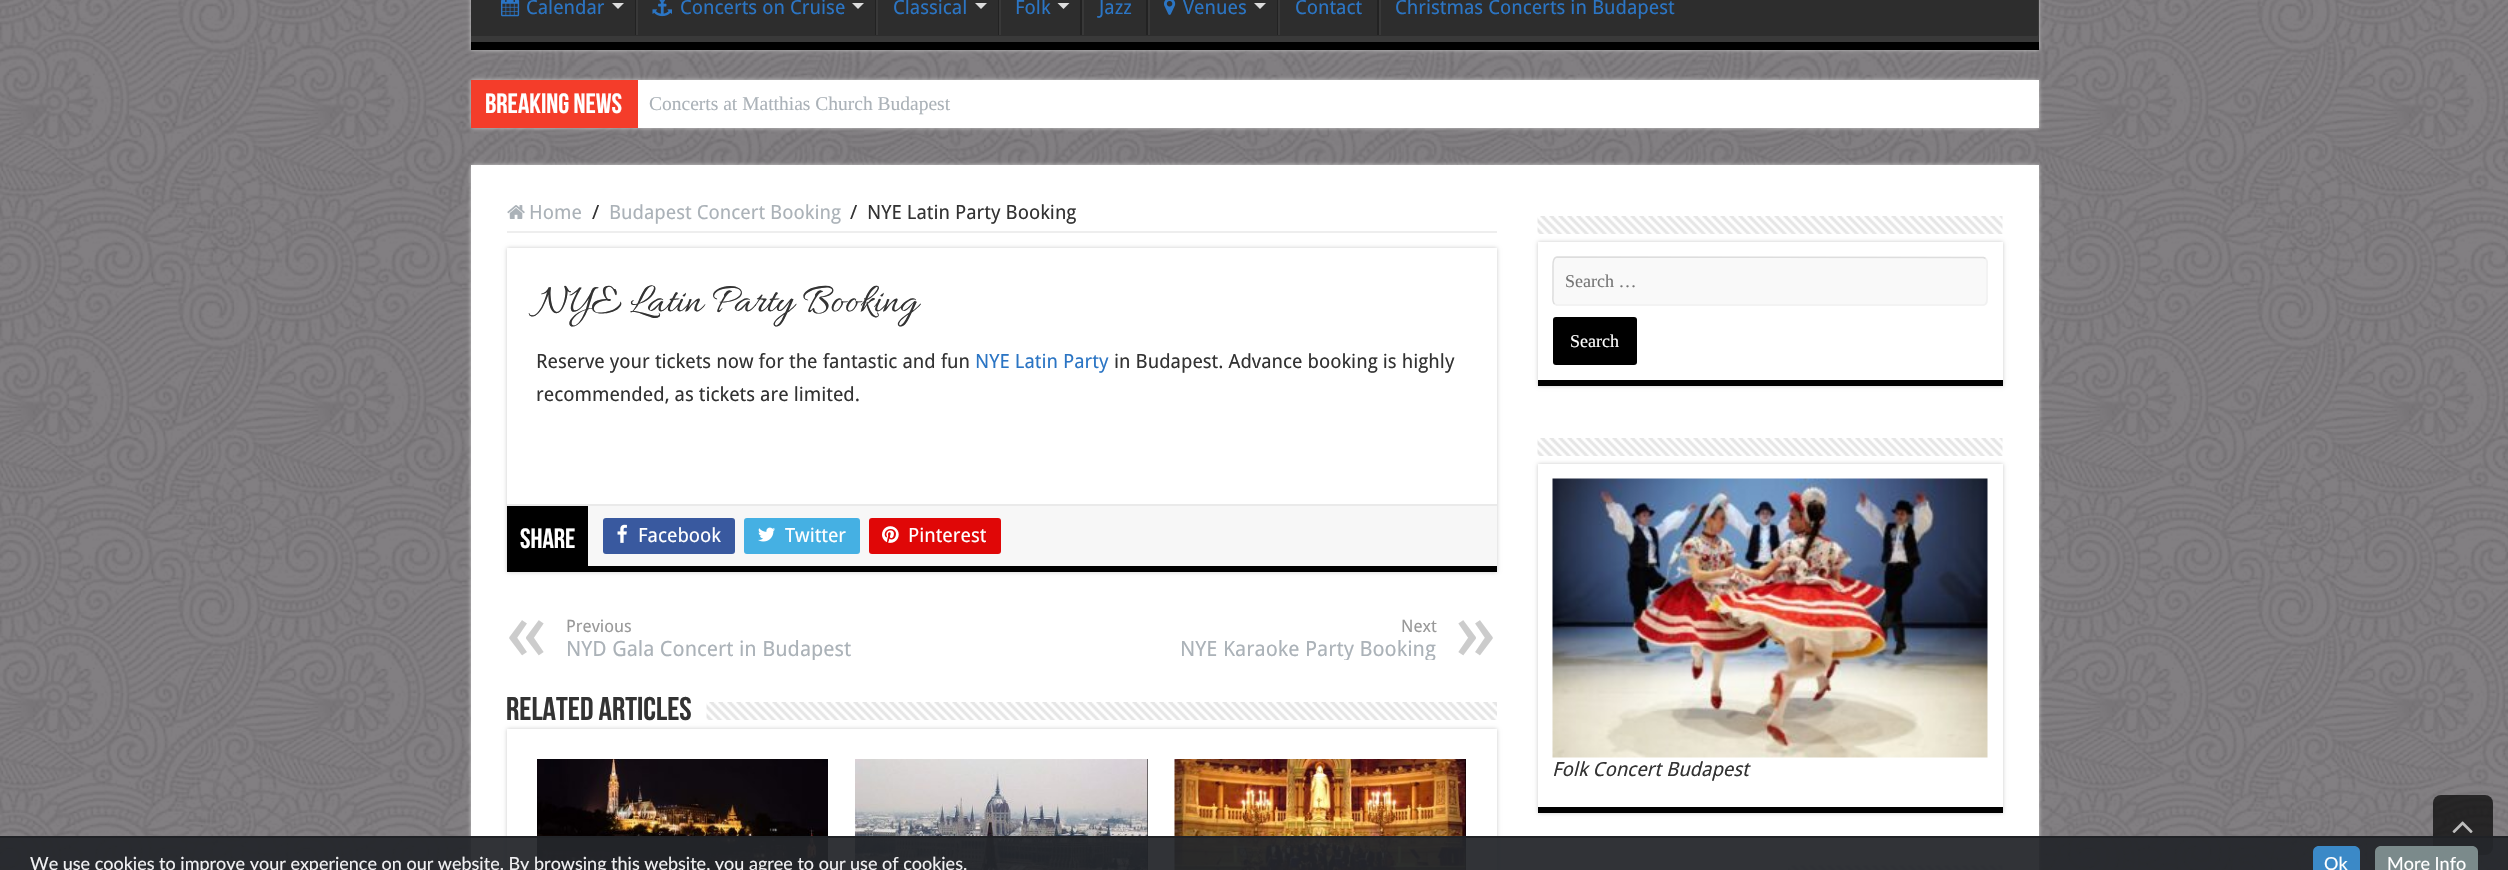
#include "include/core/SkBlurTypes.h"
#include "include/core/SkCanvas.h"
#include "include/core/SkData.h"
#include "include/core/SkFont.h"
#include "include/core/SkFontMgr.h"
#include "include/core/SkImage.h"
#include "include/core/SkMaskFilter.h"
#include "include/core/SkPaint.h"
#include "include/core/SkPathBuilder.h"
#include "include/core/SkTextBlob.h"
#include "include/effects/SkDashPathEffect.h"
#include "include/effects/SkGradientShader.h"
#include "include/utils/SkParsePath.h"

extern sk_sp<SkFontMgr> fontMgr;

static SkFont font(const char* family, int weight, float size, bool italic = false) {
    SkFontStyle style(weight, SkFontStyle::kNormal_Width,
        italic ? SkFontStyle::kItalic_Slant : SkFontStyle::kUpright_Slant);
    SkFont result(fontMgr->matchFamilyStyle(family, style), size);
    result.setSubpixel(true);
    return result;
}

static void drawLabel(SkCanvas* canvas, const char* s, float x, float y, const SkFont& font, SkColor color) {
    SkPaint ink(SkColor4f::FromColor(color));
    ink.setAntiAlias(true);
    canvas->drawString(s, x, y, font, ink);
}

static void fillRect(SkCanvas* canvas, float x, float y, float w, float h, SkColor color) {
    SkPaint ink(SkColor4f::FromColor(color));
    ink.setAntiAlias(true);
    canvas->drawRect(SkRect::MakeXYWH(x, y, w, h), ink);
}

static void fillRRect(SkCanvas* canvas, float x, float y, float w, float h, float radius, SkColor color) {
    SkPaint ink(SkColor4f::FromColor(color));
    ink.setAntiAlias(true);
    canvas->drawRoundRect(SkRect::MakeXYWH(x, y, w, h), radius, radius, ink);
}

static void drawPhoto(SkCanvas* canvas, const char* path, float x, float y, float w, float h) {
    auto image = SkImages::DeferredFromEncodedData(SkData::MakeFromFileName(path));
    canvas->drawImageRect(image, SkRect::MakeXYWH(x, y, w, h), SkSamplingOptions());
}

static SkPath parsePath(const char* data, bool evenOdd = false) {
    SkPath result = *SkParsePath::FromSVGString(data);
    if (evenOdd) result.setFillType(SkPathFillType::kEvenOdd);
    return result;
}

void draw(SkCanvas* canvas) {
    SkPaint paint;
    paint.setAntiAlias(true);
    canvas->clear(0xFF262126);
    drawPhoto(canvas, "assets/img1.png", 0, 0, 2508, 870);
    paint.setColor(0xFFCACACA);
    paint.setMaskFilter(SkMaskFilter::MakeBlur(kNormal_SkBlurStyle, 2));
    canvas->drawRect(SkRect::MakeXYWH(471, -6, 1568, 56), paint);
    paint.setMaskFilter(nullptr);
    fillRect(canvas, 471, 0, 1567, 36, 0xFF2D2D2D);
    canvas->save();
    canvas->clipRect(SkRect::MakeXYWH(471, 0, 1568, 42));
    paint.setColor(0xFF393939);
    canvas->drawPath(parsePath("M322-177H2187V190H322ZM470-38H2037C2038-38 2038-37 2038-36V34C2038 35 2038 36 2037 36H470C469 36 468 35 468 34V-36C468-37 469-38 470-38Z", true), paint);
    canvas->restore();
    fillRect(canvas, 471, 42, 1568, 8, 0xFF000000);
    drawPhoto(canvas, "assets/img2.png", 501, 0, 19, 17);
    SkFont font1 = font("Droid Sans", 400, 19.5f);
    drawLabel(canvas, "Calendar", 526, 14, font1, 0xFF2B75C4);
    paint.setColor(0xFFDDDDDD);
    canvas->drawPath(parsePath("M612 3H624L618 9Z"), paint);
    fillRect(canvas, 635, 0, 1, 35, 0xFF222222);
    fillRect(canvas, 636, 0, 2, 35, 0xFF383838);
    drawPhoto(canvas, "assets/img3.png", 652, 0, 20, 17);
    drawLabel(canvas, "Concerts on Cruise", 680, 14, font1, 0xFF2B75C4);
    canvas->drawPath(parsePath("M852 3H864L858 9Z"), paint);
    fillRect(canvas, 875, 0, 1, 35, 0xFF222222);
    fillRect(canvas, 876, 0, 2, 35, 0xFF383838);
    drawLabel(canvas, "Classical", 893, 14, font1, 0xFF2B75C4);
    canvas->drawPath(parsePath("M975 3H987L981 9Z"), paint);
    fillRect(canvas, 998, 0, 1, 35, 0xFF222222);
    fillRect(canvas, 999, 0, 2, 35, 0xFF383838);
    drawLabel(canvas, "Folk", 1015, 14, font1, 0xFF2B75C4);
    canvas->drawPath(parsePath("M1057.5 3H1069.5L1063.5 9Z"), paint);
    fillRect(canvas, 1080, 0, 2, 35, 0xFF222222);
    fillRect(canvas, 1082, 0, 2, 35, 0xFF383838);
    drawLabel(canvas, "Jazz", 1099, 14, font1, 0xFF2B75C4);
    fillRect(canvas, 1146, 0, 2, 35, 0xFF222222);
    fillRect(canvas, 1148, 0, 2, 35, 0xFF383838);
    drawPhoto(canvas, "assets/img4.png", 1164, 0, 12, 15);
    drawLabel(canvas, "Venues", 1183, 14, font1, 0xFF2B75C4);
    canvas->drawPath(parsePath("M1254 3H1266L1260 9Z"), paint);
    fillRect(canvas, 1277, 0, 1, 35, 0xFF222222);
    fillRect(canvas, 1278, 0, 2, 35, 0xFF383838);
    drawLabel(canvas, "Contact", 1295, 14, font1, 0xFF2B75C4);
    fillRect(canvas, 1377, 0, 2, 35, 0xFF222222);
    fillRect(canvas, 1379, 0, 2, 35, 0xFF383838);
    drawLabel(canvas, "Christmas Concerts in Budapest", 1395, 14, font1, 0xFF2B75C4);
    paint.setColor(0xFFCACACA);
    paint.setMaskFilter(SkMaskFilter::MakeBlur(kNormal_SkBlurStyle, 2));
    canvas->drawRect(SkRect::MakeXYWH(471, 80, 1568, 48), paint);
    paint.setMaskFilter(nullptr);
    fillRect(canvas, 638, 80, 1401, 48, 0xFFFFFFFF);
    fillRect(canvas, 471, 80, 167, 48, 0xFFF43D2A);
    SkFont font2 = font("Bebas Neue", 700, 28);
    drawLabel(canvas, "Breaking News", 485, 113, font2, 0xFFFFFFFF);
    SkFont font3 = font("Liberation Serif", 400, 19.5f);
    drawLabel(canvas, "Concerts at Matthias Church Budapest", 649, 110, font3, 0xFFABB2B8);
    paint.setMaskFilter(SkMaskFilter::MakeBlur(kNormal_SkBlurStyle, 2));
    canvas->drawRect(SkRect::MakeXYWH(471, 165, 1568, 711), paint);
    paint.setMaskFilter(nullptr);
    fillRect(canvas, 471, 165, 1568, 705, 0xFFFFFFFF);
    fillRect(canvas, 507, 231, 990, 2, 0xFFEEEEEE);
    drawPhoto(canvas, "assets/img5.png", 507, 205, 18, 14);
    drawLabel(canvas, "Home", 529, 219, font1, 0xFFABB2B8);
    drawLabel(canvas, "/", 592, 219, font1, 0xFF333333);
    drawLabel(canvas, "Budapest Concert Booking", 609, 219, font1, 0xFFABB2B8);
    drawLabel(canvas, "/", 850, 219, font1, 0xFF333333);
    drawLabel(canvas, "NYE Latin Party Booking", 867, 219, font1, 0xFF333333);
    paint.setMaskFilter(SkMaskFilter::MakeBlur(kNormal_SkBlurStyle, 2));
    canvas->drawRect(SkRect::MakeXYWH(507, 248, 990, 324), paint);
    paint.setMaskFilter(nullptr);
    fillRect(canvas, 507, 248, 990, 256, 0xFFFFFFFF);
    fillRect(canvas, 507, 566, 990, 6, 0xFF000000);
    SkFont font4 = font("Allura", 400, 42);
    drawLabel(canvas, "NYE Latin Party Booking", 536, 311, font4, 0xFF333333);
    drawLabel(canvas, "Reserve your tickets now for the fantastic and fun", 536, 368, font1, 0xFF333333);
    drawLabel(canvas, "NYE Latin Party", 975, 368, font1, 0xFF2B75C4);
    drawLabel(canvas, "in Budapest. Advance booking is highly", 1114, 368, font1, 0xFF333333);
    drawLabel(canvas, "recommended, as tickets are limited.", 536, 401, font1, 0xFF333333);
    fillRect(canvas, 588, 506, 909, 60, 0xFFF7F7F7);
    fillRect(canvas, 507, 504, 990, 2, 0xFFEAEAEA);
    fillRect(canvas, 507, 506, 81, 60, 0xFF000000);
    drawLabel(canvas, "Share", 520, 548, font2, 0xFFFFFFFF);
    fillRRect(canvas, 603, 518, 132, 36, 3, 0xFF39599F);
    drawPhoto(canvas, "assets/img6.png", 617, 524, 10, 19);
    drawLabel(canvas, "Facebook", 638, 542, font1, 0xFFFFFFFF);
    fillRRect(canvas, 744, 518, 116, 36, 3, 0xFF45B0E3);
    drawPhoto(canvas, "assets/img7.png", 758, 527, 17, 15);
    drawLabel(canvas, "Twitter", 785, 542, font1, 0xFFFFFFFF);
    fillRRect(canvas, 869, 518, 132, 36, 3, 0xFFE00707);
    drawPhoto(canvas, "assets/img8.png", 882, 526, 17, 17);
    drawLabel(canvas, "Pinterest", 908, 542, font1, 0xFFFFFFFF);
    SkFont font5 = font("Droid Sans", 400, 84);
    drawLabel(canvas, "«", 506, 660, font5, 0xFFCCCCCC);
    SkFont font6 = font("Droid Sans", 400, 17);
    drawLabel(canvas, "Previous", 566, 632, font6, 0xFF999999);
    canvas->save();
    canvas->clipRect(SkRect::MakeXYWH(507, 617, 990, 43));
    SkFont font7 = font("Droid Sans", 400, 21);
    drawLabel(canvas, "NYD Gala Concert in Budapest", 566, 656, font7, 0xFFABB2B8);
    canvas->restore();
    drawLabel(canvas, "Next", 1401, 632, font6, 0xFF999999);
    drawLabel(canvas, "»", 1455, 660, font5, 0xFFCCCCCC);
    canvas->save();
    canvas->clipRect(SkRect::MakeXYWH(507, 617, 990, 43));
    drawLabel(canvas, "NYE Karaoke Party Booking", 1180, 656, font7, 0xFFABB2B8);
    canvas->restore();
    SkFont font8 = font("Bebas Neue", 700, 33);
    drawLabel(canvas, "Related Articles", 506, 720, font8, 0xFF333333);
    drawPhoto(canvas, "assets/img9.png", 706, 702, 791, 18);
    canvas->save();
    canvas->clipPath(parsePath("M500 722H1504V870H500ZM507 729H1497V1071H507Z", true), true);
    paint.setMaskFilter(SkMaskFilter::MakeBlur(kNormal_SkBlurStyle, 2));
    canvas->drawRect(SkRect::MakeXYWH(507, 729, 990, 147), paint);
    paint.setMaskFilter(nullptr);
    canvas->restore();
    drawPhoto(canvas, "assets/img10.png", 537, 759, 291, 111);
    fillRect(canvas, 1147, 759, 1, 111, 0xFF000000);
    drawPhoto(canvas, "assets/img11.png", 855, 759, 293, 111);
    fillRect(canvas, 1465, 759, 1, 111, 0xFF000000);
    drawPhoto(canvas, "assets/img12.png", 1174, 759, 292, 111);
    drawPhoto(canvas, "assets/img13.png", 1537, 216, 466, 18);
    paint.setMaskFilter(SkMaskFilter::MakeBlur(kNormal_SkBlurStyle, 2));
    canvas->drawRect(SkRect::MakeXYWH(1538, 242, 465, 144), paint);
    paint.setMaskFilter(nullptr);
    fillRect(canvas, 1538, 242, 465, 138, 0xFFFFFFFF);
    fillRect(canvas, 1538, 380, 465, 6, 0xFF000000);
    fillRRect(canvas, 1553, 257, 435, 49, 5, 0xFFF9F9F9);
    paint.setStroke(true);
    paint.setStrokeWidth(1.5f);
    paint.setColor(0xFFF1F1F1);
    canvas->drawPath(parsePath("M1985.5 258.5C1988 260.5 1987 266 1987 268V295C1987 297.5 1988 305 1983 305H1556.5L1554.5 304"), paint);
    paint.setColor(0xFFDDDDDD);
    canvas->drawPath(parsePath("M1554.5 304C1552 302 1553 296.5 1553 295V268C1553 265 1552 257.5 1557 257L1983.5 257.5L1985.5 258.5"), paint);
    SkFont font9 = font("Liberation Serif", 400, 18);
    drawLabel(canvas, "Search …", 1565, 287, font9, 0xFF757575);
    fillRRect(canvas, 1553, 317, 84, 48, 3, 0xFF000000);
    drawLabel(canvas, "Search", 1570, 347, font9, 0xFFFFFFFF);
    drawPhoto(canvas, "assets/img14.png", 1537, 438, 466, 18);
    paint.setStroke(false);
    paint.setColor(0xFFCACACA);
    paint.setMaskFilter(SkMaskFilter::MakeBlur(kNormal_SkBlurStyle, 2));
    canvas->drawRect(SkRect::MakeXYWH(1538, 464, 465, 349), paint);
    paint.setMaskFilter(nullptr);
    fillRect(canvas, 1538, 464, 465, 343, 0xFFFFFFFF);
    fillRect(canvas, 1538, 807, 465, 6, 0xFF000000);
    drawPhoto(canvas, "assets/img15.png", 1552, 478, 436, 280);
    SkFont font10 = font("Droid Sans", 400, 19.5f, true);
    drawLabel(canvas, "Folk Concert Budapest", 1552, 776, font10, 0xFF333333);
    drawPhoto(canvas, "assets/img16.png", 1788, 865, 215, 5);
    fillRRect(canvas, 2433, 795, 60, 60, 8, 0xB3000000);
    drawPhoto(canvas, "assets/img17.png", 2452, 821, 21, 12);
    fillRect(canvas, 0, 838, 2508, 32, 0xB3323A45);
    fillRect(canvas, 0, 836, 2508, 2, 0xFF202226);
    fillRect(canvas, 0, 838, 2508, 32, 0xCC202226);
    SkFont font11 = font("Lato", 400, 18);
    drawLabel(canvas, "We use cookies to improve your experience on our website. By browsing this website, you agree to our use of cookies.", 30, 870, font11, 0xFFF1F1F3);
    paint.setColor(0xFF3B89C7);
    canvas->drawPath(parsePath("M2319 846H2354C2357.5 846 2360 848.5 2360 852V870H2313V852C2313 848.5 2315.5 846 2319 846Z"), paint);
    drawLabel(canvas, "Ok", 2324, 870, font11, 0xFFFFFFFF);
    paint.setColor(0xFF7B8A8B);
    canvas->drawPath(parsePath("M2381 846H2472C2475.5 846 2478 848.5 2478 852V870H2375V852C2375 848.5 2377.5 846 2381 846Z"), paint);
    drawLabel(canvas, "More Info", 2387, 870, font11, 0xFFFFFFFF);
}
